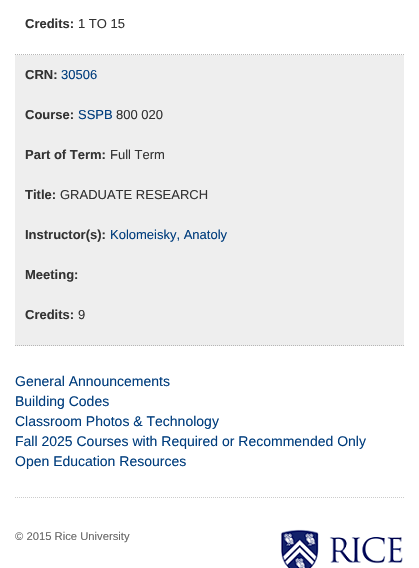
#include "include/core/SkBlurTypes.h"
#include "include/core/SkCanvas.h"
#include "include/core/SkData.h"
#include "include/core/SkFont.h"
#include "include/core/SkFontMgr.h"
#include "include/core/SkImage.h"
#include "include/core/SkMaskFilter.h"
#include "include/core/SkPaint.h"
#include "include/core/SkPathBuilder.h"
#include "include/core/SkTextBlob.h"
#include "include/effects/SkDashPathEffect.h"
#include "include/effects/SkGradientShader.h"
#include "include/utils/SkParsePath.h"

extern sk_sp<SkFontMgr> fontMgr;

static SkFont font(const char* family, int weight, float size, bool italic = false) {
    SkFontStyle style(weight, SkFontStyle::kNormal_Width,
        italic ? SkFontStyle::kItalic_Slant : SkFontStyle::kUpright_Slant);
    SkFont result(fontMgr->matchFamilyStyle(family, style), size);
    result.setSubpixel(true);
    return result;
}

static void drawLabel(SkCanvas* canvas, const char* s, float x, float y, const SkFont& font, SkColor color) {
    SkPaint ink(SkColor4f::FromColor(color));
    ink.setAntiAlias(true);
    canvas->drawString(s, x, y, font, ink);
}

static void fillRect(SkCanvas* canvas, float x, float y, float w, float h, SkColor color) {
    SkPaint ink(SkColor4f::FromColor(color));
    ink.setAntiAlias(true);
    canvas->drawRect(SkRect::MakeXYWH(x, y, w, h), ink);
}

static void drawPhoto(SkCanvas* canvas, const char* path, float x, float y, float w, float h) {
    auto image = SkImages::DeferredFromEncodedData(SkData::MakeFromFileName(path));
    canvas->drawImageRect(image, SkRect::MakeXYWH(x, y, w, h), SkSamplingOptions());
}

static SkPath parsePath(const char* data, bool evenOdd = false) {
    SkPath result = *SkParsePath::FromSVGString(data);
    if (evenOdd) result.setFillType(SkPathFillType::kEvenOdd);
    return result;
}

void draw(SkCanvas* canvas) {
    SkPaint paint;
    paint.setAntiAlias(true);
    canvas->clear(0xFFFFFFFF);
    paint.setStroke(true);
    paint.setStrokeWidth(1);
    paint.setColor(0xFFB6B6B6);
    paint.setPathEffect(SkDashPathEffect::Make({{1, 1}}, 0));
    canvas->drawPath(parsePath("M15 54.5H404"), paint);
    paint.setPathEffect(nullptr);
    SkFont font1 = font("Liberation Sans", 700, 13);
    drawLabel(canvas, "Credits:", 25, 28, font1, 0xFF333333);
    SkFont font2 = font("Liberation Sans", 400, 13);
    drawLabel(canvas, "1 TO 15", 78, 28, font2, 0xFF333333);
    fillRect(canvas, 15, 55, 389, 291, 0xFFEEEEEE);
    paint.setPathEffect(SkDashPathEffect::Make({{1, 1}}, 0));
    canvas->drawPath(parsePath("M15 345.5H404"), paint);
    paint.setPathEffect(nullptr);
    drawLabel(canvas, "CRN:", 25, 79, font1, 0xFF333333);
    drawLabel(canvas, "30506", 61, 79, font2, 0xFF003D7D);
    drawLabel(canvas, "Course:", 25, 119, font1, 0xFF333333);
    drawLabel(canvas, "SSPB", 78, 119, font2, 0xFF003D7D);
    drawLabel(canvas, "800 020", 116, 119, font2, 0xFF333333);
    drawLabel(canvas, "Part of Term:", 25, 159, font1, 0xFF333333);
    drawLabel(canvas, "Full Term", 110, 159, font2, 0xFF333333);
    drawLabel(canvas, "Title:", 25, 199, font1, 0xFF333333);
    drawLabel(canvas, "GRADUATE RESEARCH", 60, 199, font2, 0xFF333333);
    drawLabel(canvas, "Instructor(s):", 25, 239, font1, 0xFF333333);
    drawLabel(canvas, "Kolomeisky, Anatoly", 110, 239, font2, 0xFF003D7D);
    drawLabel(canvas, "Meeting:", 25, 279, font1, 0xFF333333);
    drawLabel(canvas, "Credits:", 25, 319, font1, 0xFF333333);
    drawLabel(canvas, "9", 78, 319, font2, 0xFF333333);
    SkFont font3 = font("Liberation Sans", 400, 14);
    drawLabel(canvas, "General Announcements", 15, 386, font3, 0xFF003D7D);
    drawLabel(canvas, "Building Codes", 15, 406, font3, 0xFF003D7D);
    drawLabel(canvas, "Classroom Photos & Technology", 15, 426, font3, 0xFF003D7D);
    drawLabel(canvas, "Fall 2025 Courses with Required or Recommended Only", 15, 446, font3, 0xFF003D7D);
    drawLabel(canvas, "Open Education Resources", 15, 466, font3, 0xFF003D7D);
    paint.setColor(0xFFCCCCCC);
    paint.setPathEffect(SkDashPathEffect::Make({{1, 1}}, 0));
    canvas->drawPath(parsePath("M15 497.5H404"), paint);
    paint.setPathEffect(nullptr);
    SkFont font4 = font("Liberation Sans", 400, 11.25f);
    drawLabel(canvas, "© 2015 Rice University", 15, 540, font4, 0xFF666666);
    drawPhoto(canvas, "assets/img1.png", 281, 529, 122, 39);
}
